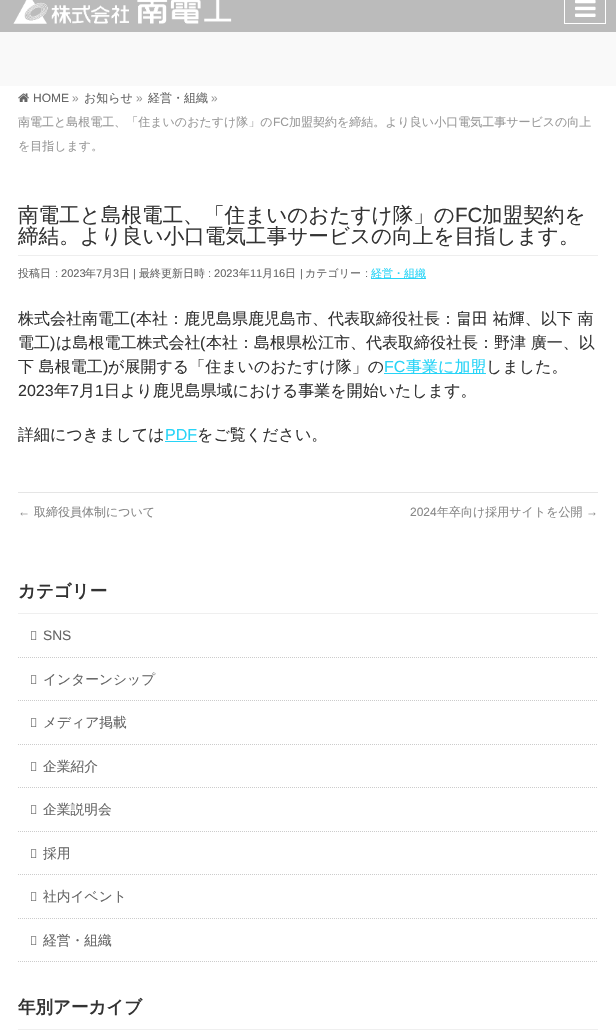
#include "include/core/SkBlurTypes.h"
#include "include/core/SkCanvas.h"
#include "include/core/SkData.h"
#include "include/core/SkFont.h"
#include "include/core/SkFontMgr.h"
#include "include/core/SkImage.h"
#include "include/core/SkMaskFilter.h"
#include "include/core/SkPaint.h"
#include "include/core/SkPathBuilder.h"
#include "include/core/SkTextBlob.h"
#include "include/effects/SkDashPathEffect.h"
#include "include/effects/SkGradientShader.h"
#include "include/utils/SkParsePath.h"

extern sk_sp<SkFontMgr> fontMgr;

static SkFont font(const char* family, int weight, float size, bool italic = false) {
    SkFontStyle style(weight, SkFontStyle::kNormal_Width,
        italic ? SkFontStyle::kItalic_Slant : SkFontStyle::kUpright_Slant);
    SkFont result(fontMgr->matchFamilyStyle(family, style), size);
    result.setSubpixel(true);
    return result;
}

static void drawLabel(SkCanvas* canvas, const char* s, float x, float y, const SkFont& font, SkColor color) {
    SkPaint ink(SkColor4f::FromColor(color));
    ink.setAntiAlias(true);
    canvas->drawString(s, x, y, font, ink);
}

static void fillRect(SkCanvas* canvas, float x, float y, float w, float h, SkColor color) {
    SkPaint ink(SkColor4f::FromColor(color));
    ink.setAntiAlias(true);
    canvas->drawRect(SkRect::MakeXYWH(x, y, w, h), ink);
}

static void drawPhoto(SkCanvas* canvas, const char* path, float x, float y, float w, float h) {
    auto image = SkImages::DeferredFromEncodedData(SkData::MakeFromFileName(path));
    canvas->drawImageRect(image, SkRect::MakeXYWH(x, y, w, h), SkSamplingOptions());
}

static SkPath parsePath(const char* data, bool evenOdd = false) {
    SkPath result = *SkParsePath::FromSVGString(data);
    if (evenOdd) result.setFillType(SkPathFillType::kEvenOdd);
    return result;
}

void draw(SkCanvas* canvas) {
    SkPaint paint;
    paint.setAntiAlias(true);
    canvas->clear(0xFFFFFFFF);
    fillRect(canvas, 0, 0, 616, 32, 0xFFBBBBBB);
    drawPhoto(canvas, "assets/img1.png", 13, 0, 219, 24);
    paint.setStroke(true);
    paint.setStrokeWidth(1);
    paint.setColor(0xFFFFFFFF);
    canvas->drawRect(SkRect::MakeXYWH(564.5f, -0.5f, 41, 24), paint);
    drawPhoto(canvas, "assets/img2.png", 575, 0, 21, 17);
    fillRect(canvas, 0, 32, 616, 54, 0xFFF9F9F9);
    drawPhoto(canvas, "assets/img3.png", 18, 93, 11, 9);
    SkFont font1 = font("Liberation Sans", 400, 12);
    drawLabel(canvas, "HOME", 33, 102, font1, 0xFF666666);
    drawLabel(canvas, "»", 72, 102, font1, 0xFF999999);
    SkFont font2 = font("WenQuanYi Zen Hei", 500, 12);
    drawLabel(canvas, "お知らせ", 84, 102, font2, 0xFF666666);
    drawLabel(canvas, "»", 136, 102, font1, 0xFF999999);
    drawLabel(canvas, "経営・組織", 148, 102, font2, 0xFF666666);
    drawLabel(canvas, "»", 211, 102, font1, 0xFF999999);
    drawLabel(canvas, "南電工と島根電工、「住まいのおたすけ隊」の", 18, 126, font2, 0xFF999999);
    drawLabel(canvas, "FC", 273, 126, font1, 0xFF999999);
    drawLabel(canvas, "加盟契約を締結。より良い小口電気工事サービスの向上", 289, 126, font2, 0xFF999999);
    drawLabel(canvas, "を目指します。", 18, 150, font2, 0xFF999999);
    fillRect(canvas, 18, 255, 580, 1, 0xFFEEEEEE);
    SkFont font3 = font("WenQuanYi Zen Hei", 500, 20.6f);
    drawLabel(canvas, "南電工と島根電工、「住まいのおたすけ隊」の", 18, 222, font3, 0xFF333333);
    SkFont font4 = font("Liberation Sans", 400, 20.6f);
    drawLabel(canvas, "FC", 455, 222, font4, 0xFF333333);
    drawLabel(canvas, "加盟契約を", 482, 222, font3, 0xFF333333);
    drawLabel(canvas, "締結。より良い小口電気工事サービスの向上を目指します。", 18, 243, font3, 0xFF333333);
    SkFont font5 = font("WenQuanYi Zen Hei", 500, 11);
    drawLabel(canvas, "投稿日", 18, 277, font5, 0xFF666666);
    SkFont font6 = font("Liberation Sans", 400, 11);
    drawLabel(canvas, ": 2023", 55, 277, font6, 0xFF666666);
    drawLabel(canvas, "年", 85, 277, font5, 0xFF666666);
    drawLabel(canvas, "7", 96, 277, font6, 0xFF666666);
    drawLabel(canvas, "月", 102, 277, font5, 0xFF666666);
    drawLabel(canvas, "3", 113, 277, font6, 0xFF666666);
    drawLabel(canvas, "日", 119, 277, font5, 0xFF666666);
    drawLabel(canvas, "|", 133, 277, font6, 0xFF666666);
    drawLabel(canvas, "最終更新日時", 139, 277, font5, 0xFF666666);
    drawLabel(canvas, ": 2023", 208, 277, font6, 0xFF666666);
    drawLabel(canvas, "年", 239, 277, font5, 0xFF666666);
    drawLabel(canvas, "11", 250, 277, font6, 0xFF666666);
    drawLabel(canvas, "月", 262, 277, font5, 0xFF666666);
    drawLabel(canvas, "16", 273, 277, font6, 0xFF666666);
    drawLabel(canvas, "日", 285, 277, font5, 0xFF666666);
    drawLabel(canvas, "|", 300, 277, font6, 0xFF666666);
    drawLabel(canvas, "カテゴリー", 305, 277, font5, 0xFF666666);
    drawLabel(canvas, ":", 365, 277, font6, 0xFF666666);
    fillRect(canvas, 371, 278, 55, 1, 0xFF27D4F7);
    drawLabel(canvas, "経営・組織", 371, 277, font5, 0xFF27D4F7);
    SkFont font7 = font("WenQuanYi Zen Hei", 500, 16);
    drawLabel(canvas, "株式会社南電工", 18, 324, font7, 0xFF333333);
    SkFont font8 = font("Liberation Sans", 400, 16);
    drawLabel(canvas, "(", 130, 324, font8, 0xFF333333);
    drawLabel(canvas, "本社：鹿児島県鹿児島市、代表取締役社長：畠田 祐輝、以下 南", 136, 324, font7, 0xFF333333);
    drawLabel(canvas, "電工", 18, 348, font7, 0xFF333333);
    drawLabel(canvas, ")", 50, 348, font8, 0xFF333333);
    drawLabel(canvas, "は島根電工株式会社", 56, 348, font7, 0xFF333333);
    drawLabel(canvas, "(", 200, 348, font8, 0xFF333333);
    drawLabel(canvas, "本社：島根県松江市、代表取締役社長：野津 廣一、以", 206, 348, font7, 0xFF333333);
    drawLabel(canvas, "下 島根電工", 18, 372, font7, 0xFF333333);
    drawLabel(canvas, ")", 103, 372, font8, 0xFF333333);
    drawLabel(canvas, "が展開する「住まいのおたすけ隊」の", 108, 372, font7, 0xFF333333);
    drawLabel(canvas, "FC", 384, 372, font8, 0xFF27D4F7);
    fillRect(canvas, 384, 373, 102, 1, 0xFF27D4F7);
    drawLabel(canvas, "事業に加盟", 406, 372, font7, 0xFF27D4F7);
    drawLabel(canvas, "しました。", 486, 372, font7, 0xFF333333);
    drawLabel(canvas, "2023", 18, 396, font8, 0xFF333333);
    drawLabel(canvas, "年", 54, 396, font7, 0xFF333333);
    drawLabel(canvas, "7", 70, 396, font8, 0xFF333333);
    drawLabel(canvas, "月", 79, 396, font7, 0xFF333333);
    drawLabel(canvas, "1", 95, 396, font8, 0xFF333333);
    drawLabel(canvas, "日より鹿児島県域における事業を開始いたします。", 104, 396, font7, 0xFF333333);
    drawLabel(canvas, "詳細につきましては", 18, 440, font7, 0xFF333333);
    drawLabel(canvas, "PDF", 165, 440, font8, 0xFF27D4F7);
    fillRect(canvas, 165, 441, 32, 1, 0xFF27D4F7);
    drawLabel(canvas, "をご覧ください。", 197, 440, font7, 0xFF333333);
    fillRect(canvas, 18, 492, 580, 1, 0xFFE5E5E5);
    drawLabel(canvas, "←", 18, 516, font1, 0xFF888888);
    drawLabel(canvas, "取締役員体制について", 34, 516, font2, 0xFF888888);
    drawLabel(canvas, "2024", 410, 516, font1, 0xFF888888);
    drawLabel(canvas, "年卒向け採用サイトを公開", 437, 516, font2, 0xFF888888);
    drawLabel(canvas, "→", 586, 516, font1, 0xFF888888);
    fillRect(canvas, 18, 613, 580, 1, 0xFFEFEFEF);
    SkFont font9 = font("WenQuanYi Zen Hei", 700, 17.5f);
    drawLabel(canvas, "カテゴリー", 18, 597, font9, 0xFF333333);
    paint.setColor(0xFFCCCCCC);
    paint.setPathEffect(SkDashPathEffect::Make({{1, 1}}, 0));
    canvas->drawPath(parsePath("M18 657.5H598"), paint);
    paint.setPathEffect(nullptr);
    drawPhoto(canvas, "assets/img4.png", 31, 631, 6, 9);
    SkFont font10 = font("Liberation Sans", 400, 13.75f);
    drawLabel(canvas, "SNS", 43, 640, font10, 0xFF666666);
    paint.setPathEffect(SkDashPathEffect::Make({{1, 1}}, 0));
    canvas->drawPath(parsePath("M18 700.5H598"), paint);
    paint.setPathEffect(nullptr);
    drawPhoto(canvas, "assets/img4.png", 31, 675, 6, 9);
    SkFont font11 = font("WenQuanYi Zen Hei", 500, 13.75f);
    drawLabel(canvas, "インターンシップ", 43, 684, font11, 0xFF666666);
    paint.setPathEffect(SkDashPathEffect::Make({{1, 1}}, 0));
    canvas->drawPath(parsePath("M18 744.5H598"), paint);
    paint.setPathEffect(nullptr);
    drawPhoto(canvas, "assets/img4.png", 31, 718, 6, 9);
    drawLabel(canvas, "メディア掲載", 43, 727, font11, 0xFF666666);
    paint.setPathEffect(SkDashPathEffect::Make({{1, 1}}, 0));
    canvas->drawPath(parsePath("M18 787.5H598"), paint);
    paint.setPathEffect(nullptr);
    drawPhoto(canvas, "assets/img4.png", 31, 762, 6, 9);
    drawLabel(canvas, "企業紹介", 43, 771, font11, 0xFF666666);
    paint.setPathEffect(SkDashPathEffect::Make({{1, 1}}, 0));
    canvas->drawPath(parsePath("M18 831.5H598"), paint);
    paint.setPathEffect(nullptr);
    drawPhoto(canvas, "assets/img4.png", 31, 805, 6, 9);
    drawLabel(canvas, "企業説明会", 43, 814, font11, 0xFF666666);
    paint.setPathEffect(SkDashPathEffect::Make({{1, 1}}, 0));
    canvas->drawPath(parsePath("M18 874.5H598"), paint);
    paint.setPathEffect(nullptr);
    drawPhoto(canvas, "assets/img4.png", 31, 849, 6, 9);
    drawLabel(canvas, "採用", 43, 858, font11, 0xFF666666);
    paint.setPathEffect(SkDashPathEffect::Make({{1, 1}}, 0));
    canvas->drawPath(parsePath("M18 918.5H598"), paint);
    paint.setPathEffect(nullptr);
    drawPhoto(canvas, "assets/img4.png", 31, 892, 6, 9);
    drawLabel(canvas, "社内イベント", 43, 901, font11, 0xFF666666);
    paint.setPathEffect(SkDashPathEffect::Make({{1, 1}}, 0));
    canvas->drawPath(parsePath("M18 961.5H598"), paint);
    paint.setPathEffect(nullptr);
    drawPhoto(canvas, "assets/img4.png", 31, 936, 6, 9);
    drawLabel(canvas, "経営・組織", 43, 945, font11, 0xFF666666);
    fillRect(canvas, 18, 1029, 580, 1, 0xFFEFEFEF);
    drawLabel(canvas, "年別アーカイブ", 18, 1013, font9, 0xFF333333);
}
